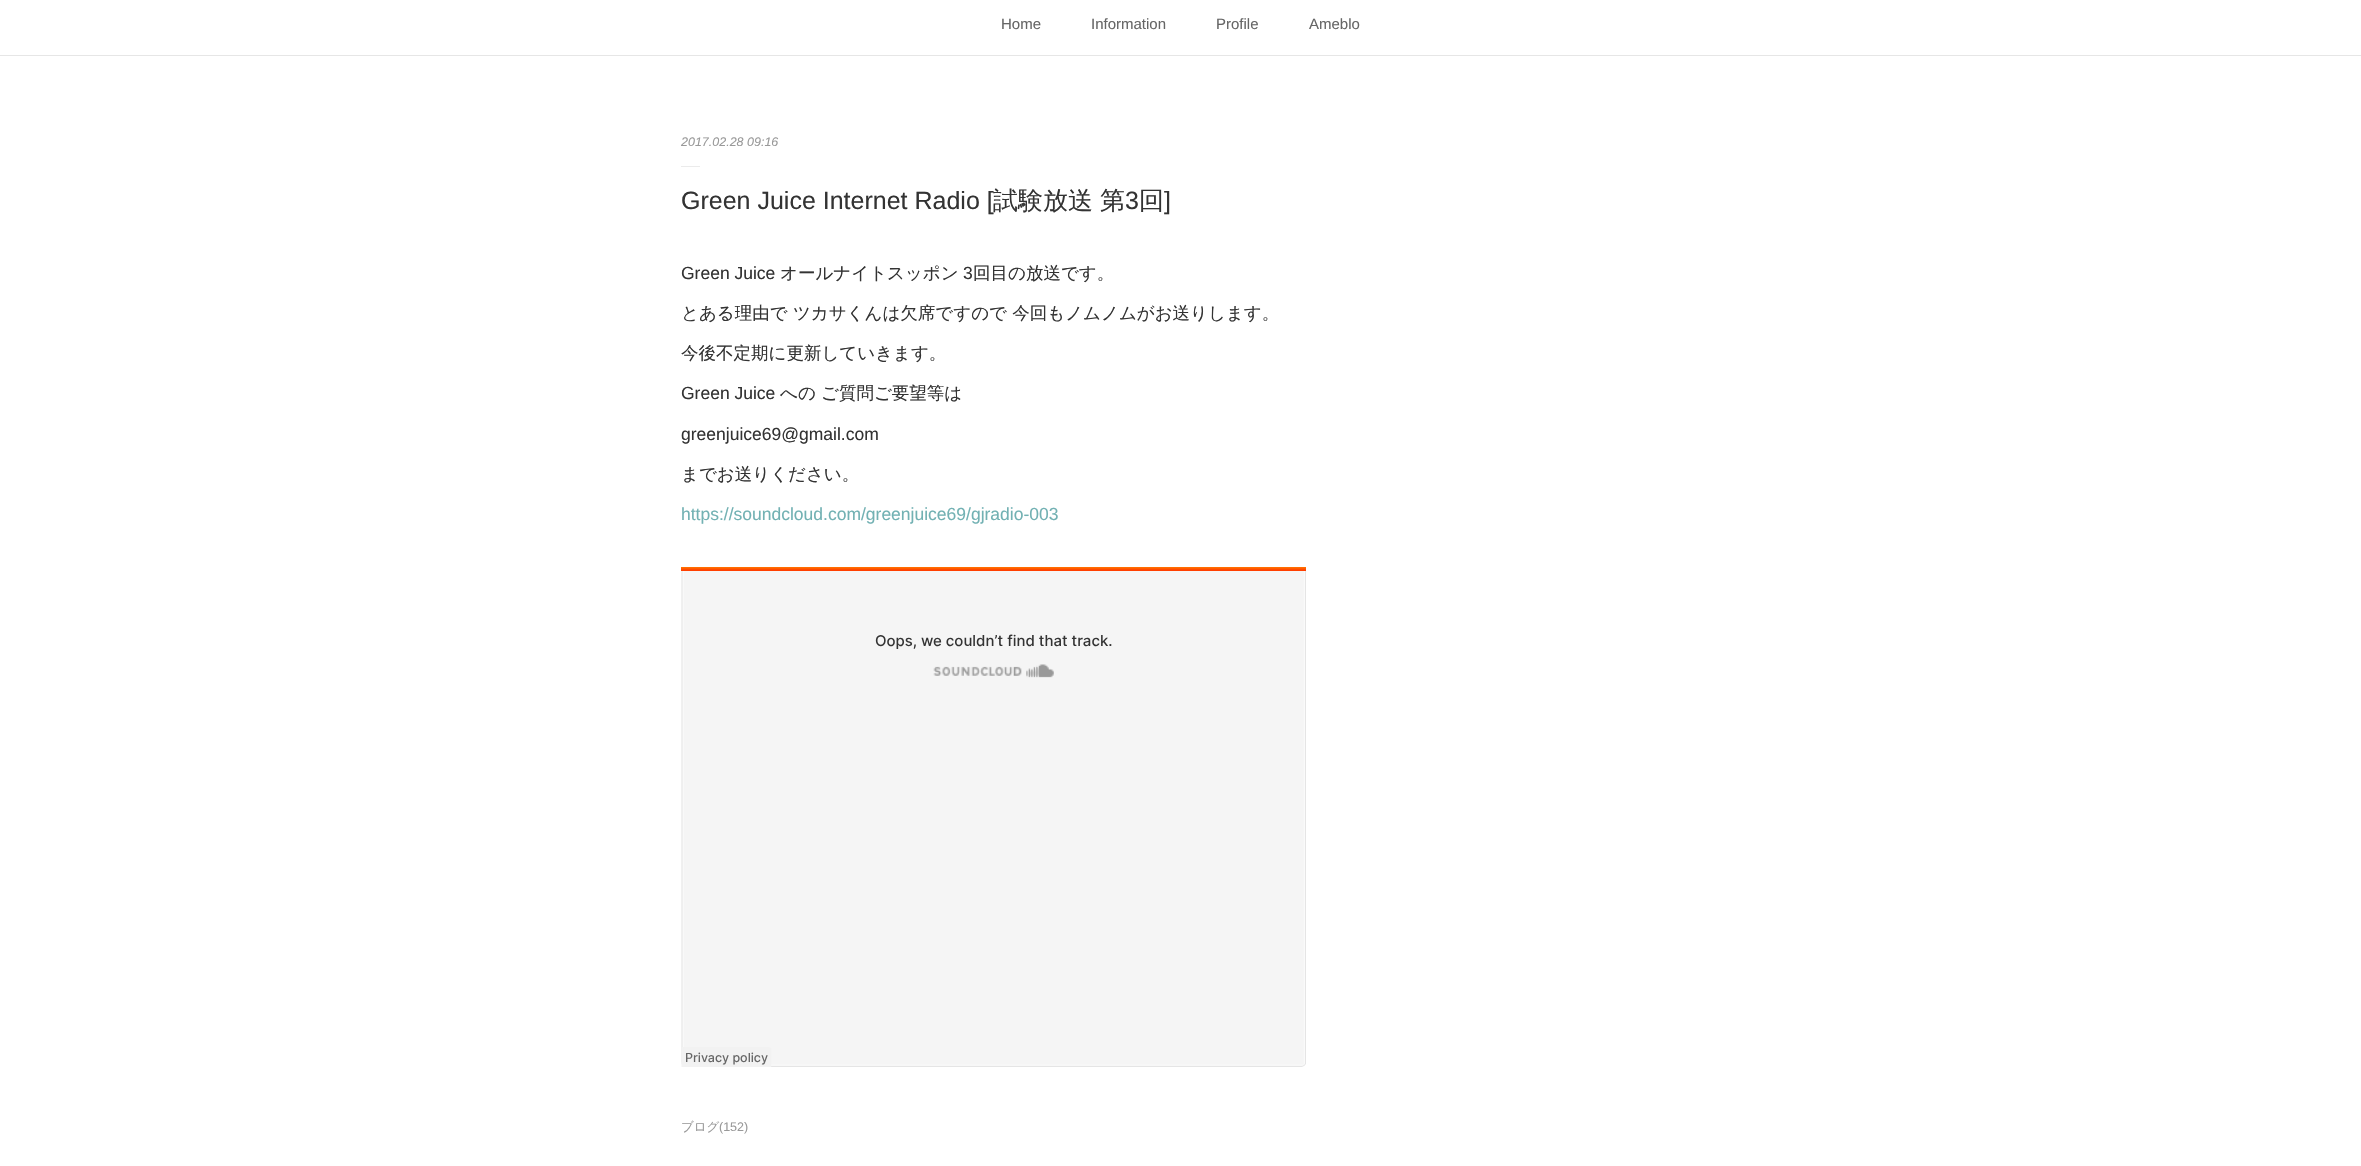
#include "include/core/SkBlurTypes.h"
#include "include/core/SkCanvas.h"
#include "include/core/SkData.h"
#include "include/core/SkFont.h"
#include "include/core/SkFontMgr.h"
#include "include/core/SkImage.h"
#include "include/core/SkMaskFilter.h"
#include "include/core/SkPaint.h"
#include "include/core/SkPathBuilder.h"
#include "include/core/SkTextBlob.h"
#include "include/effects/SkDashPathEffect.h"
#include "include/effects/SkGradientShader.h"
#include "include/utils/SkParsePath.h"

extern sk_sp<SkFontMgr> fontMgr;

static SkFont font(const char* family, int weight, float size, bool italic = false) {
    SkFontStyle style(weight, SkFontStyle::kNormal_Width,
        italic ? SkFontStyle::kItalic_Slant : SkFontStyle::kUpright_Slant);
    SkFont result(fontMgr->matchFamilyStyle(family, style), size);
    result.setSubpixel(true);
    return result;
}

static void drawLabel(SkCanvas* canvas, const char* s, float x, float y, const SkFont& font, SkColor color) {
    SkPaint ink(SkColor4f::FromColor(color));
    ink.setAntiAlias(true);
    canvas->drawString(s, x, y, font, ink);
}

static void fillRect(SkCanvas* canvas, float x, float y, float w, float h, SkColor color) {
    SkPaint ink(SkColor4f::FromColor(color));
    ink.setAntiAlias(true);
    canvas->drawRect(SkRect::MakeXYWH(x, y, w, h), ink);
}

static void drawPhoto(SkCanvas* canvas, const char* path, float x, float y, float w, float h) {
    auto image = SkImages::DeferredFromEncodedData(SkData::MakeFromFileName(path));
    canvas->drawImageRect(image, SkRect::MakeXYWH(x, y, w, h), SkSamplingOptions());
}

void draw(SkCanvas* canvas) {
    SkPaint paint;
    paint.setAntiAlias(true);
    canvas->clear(0xFFFFFFFF);
    fillRect(canvas, 0, 55, 2361, 1, 0xFFE6E6E6);
    SkFont font1 = font("Liberation Sans", 400, 15);
    drawLabel(canvas, "Home", 1001, 29, font1, 0xFF666666);
    drawLabel(canvas, "Information", 1091, 29, font1, 0xFF666666);
    drawLabel(canvas, "Profile", 1216, 29, font1, 0xFF666666);
    drawLabel(canvas, "Ameblo", 1309, 29, font1, 0xFF666666);
    SkFont font2 = font("Liberation Sans", 400, 12.5f, true);
    drawLabel(canvas, "2017.02.28 09:16", 681, 146, font2, 0xFF999999);
    fillRect(canvas, 681, 166, 19, 1, 0xFFEBEBEB);
    SkFont font3 = font("Liberation Sans", 400, 25);
    drawLabel(canvas, "Green Juice Internet Radio [", 681, 209, font3, 0xFF333333);
    SkFont font4 = font("WenQuanYi Zen Hei", 500, 25);
    drawLabel(canvas, "試験放送", 993, 209, font4, 0xFF333333);
    drawLabel(canvas, "第", 1100, 209, font4, 0xFF333333);
    drawLabel(canvas, "3", 1125, 209, font3, 0xFF333333);
    drawLabel(canvas, "回", 1139, 209, font4, 0xFF333333);
    drawLabel(canvas, "]", 1164, 209, font3, 0xFF333333);
    SkFont font5 = font("Liberation Sans", 400, 17.5f);
    drawLabel(canvas, "Green Juice", 681, 279, font5, 0xFF333333);
    SkFont font6 = font("WenQuanYi Zen Hei", 500, 17.5f);
    drawLabel(canvas, "オールナイトスッポン", 780, 279, font6, 0xFF333333);
    drawLabel(canvas, "3", 963, 279, font5, 0xFF333333);
    drawLabel(canvas, "回目の放送です。", 973, 279, font6, 0xFF333333);
    drawLabel(canvas, "とある理由で ツカサくんは欠席ですので 今回もノムノムがお送りします。", 681, 319, font6, 0xFF333333);
    drawLabel(canvas, "今後不定期に更新していきます。", 681, 359, font6, 0xFF333333);
    drawLabel(canvas, "Green Juice", 681, 399, font5, 0xFF333333);
    drawLabel(canvas, "への", 780, 399, font6, 0xFF333333);
    drawLabel(canvas, "ご質問ご要望等は", 821, 399, font6, 0xFF333333);
    drawLabel(canvas, "greenjuice69@gmail.com", 681, 440, font5, 0xFF333333);
    drawLabel(canvas, "までお送りください。", 681, 480, font6, 0xFF333333);
    drawLabel(canvas, "https://soundcloud.com/greenjuice69/gjradio-003", 681, 520, font5, 0xFF72B1B3);
    drawPhoto(canvas, "assets/img1.png", 681, 567, 625, 500);
    SkFont font7 = font("WenQuanYi Zen Hei", 500, 12.5f);
    drawLabel(canvas, "ブログ", 681, 1131, font7, 0xFF999999);
    SkFont font8 = font("Liberation Sans", 400, 12.5f);
    drawLabel(canvas, "(152)", 719, 1131, font8, 0xFF999999);
}
